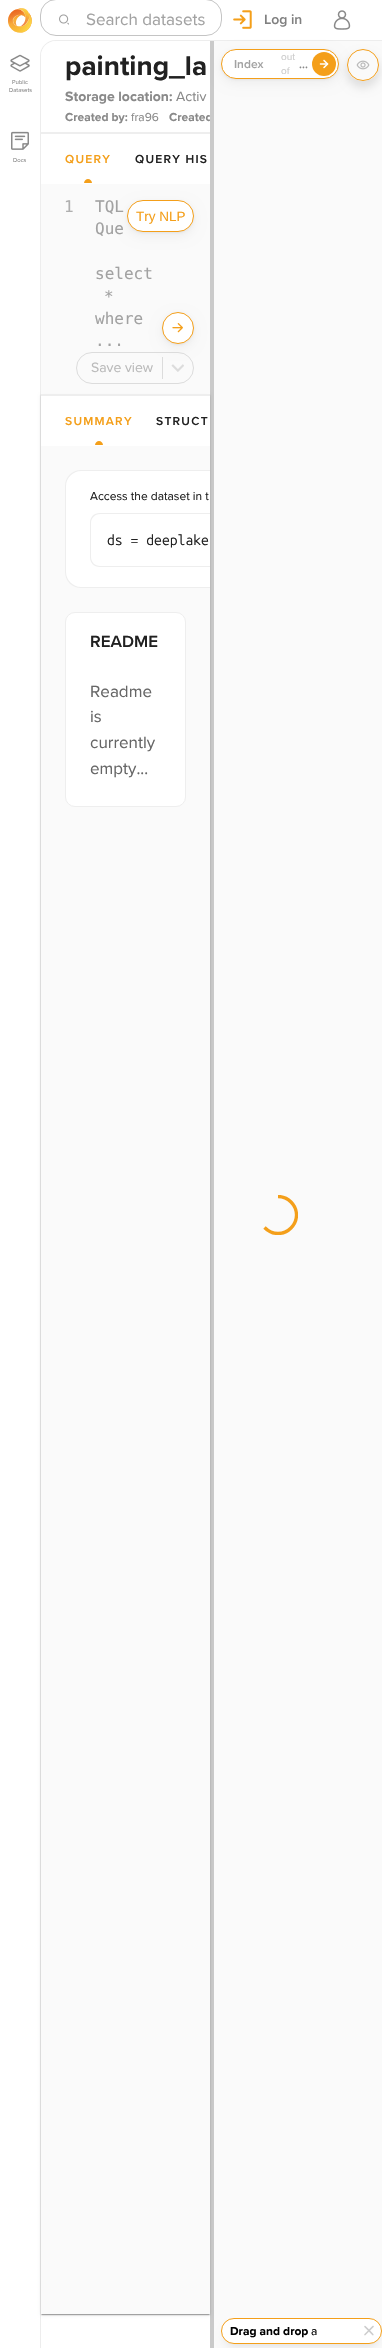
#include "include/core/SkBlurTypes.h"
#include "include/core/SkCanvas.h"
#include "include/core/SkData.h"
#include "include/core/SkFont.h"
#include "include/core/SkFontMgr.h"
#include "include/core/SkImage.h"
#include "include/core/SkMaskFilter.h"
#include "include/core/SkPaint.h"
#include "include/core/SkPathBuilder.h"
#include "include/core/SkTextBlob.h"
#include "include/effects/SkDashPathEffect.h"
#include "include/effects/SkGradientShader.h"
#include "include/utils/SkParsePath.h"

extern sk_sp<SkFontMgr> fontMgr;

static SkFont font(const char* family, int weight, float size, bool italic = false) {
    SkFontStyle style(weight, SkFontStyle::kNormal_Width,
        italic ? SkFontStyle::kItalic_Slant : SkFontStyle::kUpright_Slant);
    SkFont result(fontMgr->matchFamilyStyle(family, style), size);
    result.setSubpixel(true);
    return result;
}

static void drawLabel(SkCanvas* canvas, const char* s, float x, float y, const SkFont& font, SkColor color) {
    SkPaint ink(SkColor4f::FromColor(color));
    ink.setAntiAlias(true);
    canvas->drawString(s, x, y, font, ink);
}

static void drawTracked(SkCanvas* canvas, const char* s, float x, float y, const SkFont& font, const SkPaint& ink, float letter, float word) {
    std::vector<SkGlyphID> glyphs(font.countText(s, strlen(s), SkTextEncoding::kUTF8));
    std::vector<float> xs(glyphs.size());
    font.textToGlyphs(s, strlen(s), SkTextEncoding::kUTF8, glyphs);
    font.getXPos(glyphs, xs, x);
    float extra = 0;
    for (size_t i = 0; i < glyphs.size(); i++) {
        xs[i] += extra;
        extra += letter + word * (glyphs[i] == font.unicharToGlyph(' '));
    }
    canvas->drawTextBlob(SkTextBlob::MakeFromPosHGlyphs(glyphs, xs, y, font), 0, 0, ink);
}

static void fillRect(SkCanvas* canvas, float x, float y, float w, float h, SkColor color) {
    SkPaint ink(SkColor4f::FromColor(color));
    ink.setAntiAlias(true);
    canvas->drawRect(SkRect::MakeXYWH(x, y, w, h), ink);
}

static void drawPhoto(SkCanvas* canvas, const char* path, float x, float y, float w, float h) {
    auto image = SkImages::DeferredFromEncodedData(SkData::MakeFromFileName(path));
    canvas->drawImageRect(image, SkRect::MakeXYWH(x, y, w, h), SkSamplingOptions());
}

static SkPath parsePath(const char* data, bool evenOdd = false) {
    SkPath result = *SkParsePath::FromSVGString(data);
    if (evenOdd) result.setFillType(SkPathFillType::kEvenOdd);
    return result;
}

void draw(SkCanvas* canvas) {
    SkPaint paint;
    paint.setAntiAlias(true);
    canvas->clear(0xFFFFFFFF);
    drawPhoto(canvas, "assets/img1.png", 8, 8, 24, 25);
    drawPhoto(canvas, "assets/img2.png", 59, 14, 10, 11);
    paint.setColor(0xFFEDEDED);
    canvas->drawPath(parsePath("M56 40H382V2348H40V56C40 47 47 40 56 40ZM56 41H382V2348H41V56C41 48 48 41 56 41Z", true), paint);
    paint.setColor(0xFFFFFFFF);
    canvas->drawPath(parsePath("M56 41H210V132H41V56C41 47.5 47.5 41 56 41Z"), paint);
    fillRect(canvas, 210, 41, 4, 2307, 0xFFCACACA);
    paint.setColor(0x1F000000);
    paint.setMaskFilter(SkMaskFilter::MakeBlur(kNormal_SkBlurStyle, 1.5f));
    canvas->drawRect(SkRect::MakeXYWH(41, 395, 169, 1920), paint);
    paint.setMaskFilter(nullptr);
    fillRect(canvas, 214, 41, 168, 2307, 0xFFFAFAFA);
    paint.setColor(0x0D000000);
    paint.setMaskFilter(SkMaskFilter::MakeBlur(kNormal_SkBlurStyle, 6));
    canvas->drawRoundRect(SkRect::MakeXYWH(221, 53, 118, 30), 15, 15, paint);
    paint.setMaskFilter(nullptr);
    paint.setStroke(true);
    paint.setStrokeWidth(1);
    paint.setColor(0xFFC4C4C4);
    canvas->drawRoundRect(SkRect::MakeXYWH(40.5f, -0.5f, 181, 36), 15.5f, 15.5f, paint);
    SkFont font1 = font("Proxima Nova", 400, 17);
    drawLabel(canvas, "Search datasets", 86, 25, font1, 0xFFA2A2A2);
    drawPhoto(canvas, "assets/img3.png", 233, 10, 19, 19);
    SkFont font2 = font("Proxima Nova", 600, 14);
    drawLabel(canvas, "Log in", 264, 24, font2, 0xFF808080);
    drawPhoto(canvas, "assets/img4.png", 333, 10, 18, 20);
    drawPhoto(canvas, "assets/img5.png", 10, 54, 20, 18);
    SkFont font3 = font("Proxima Nova", 400, 6);
    drawLabel(canvas, "Public", 12, 84, font3, 0xFF898989);
    drawLabel(canvas, "Datasets", 9, 92, font3, 0xFF898989);
    drawPhoto(canvas, "assets/img6.png", 11, 131, 18, 19);
    drawLabel(canvas, "Docs", 13, 162, font3, 0xFF898989);
    SkFont font4 = font("Proxima Nova", 700, 28);
    drawLabel(canvas, "painting_la", 65, 75, font4, 0xFF212121);
    SkFont font5 = font("Proxima Nova", 700, 14);
    drawLabel(canvas, "Storage location:", 65, 101, font5, 0xFF898989);
    SkFont font6 = font("Proxima Nova", 400, 14);
    drawLabel(canvas, "Activ", 176, 101, font6, 0xFF898989);
    SkFont font7 = font("Proxima Nova", 700, 12);
    drawLabel(canvas, "Created by:", 65, 121, font7, 0xFF898989);
    SkFont font8 = font("Proxima Nova", 400, 12);
    drawLabel(canvas, "fra96", 131, 121, font8, 0xFF898989);
    canvas->save();
    canvas->clipRect(SkRect::MakeXYWH(41, 41, 169, 2307));
    drawLabel(canvas, "Created", 169, 121, font7, 0xFF898989);
    canvas->restore();
    fillRect(canvas, 41, 132, 169, 2, 0xFFEEEEEE);
    SkFont font9 = font("Proxima Nova", 600, 12);
    paint.setStroke(false);
    paint.setColor(0xFFF49F1A);
    drawTracked(canvas, "QUERY", 65, 163, font9, paint, 1.25f, 0);
    canvas->drawPath(parsePath("M88 179C90 179 92 181 92 183H84C84 181 86 179 88 179Z"), paint);
    paint.setColor(0xFF212121);
    drawTracked(canvas, "QUERY HIS", 135, 163, font9, paint, 1.25f, 0);
    paint.setColor(0x24000000);
    paint.setMaskFilter(SkMaskFilter::MakeBlur(kNormal_SkBlurStyle, 0.5f));
    canvas->drawRect(SkRect::MakeXYWH(41, 395, 169, 1920), paint);
    paint.setMaskFilter(nullptr);
    fillRect(canvas, 41, 184, 169, 209, 0xFFFAFAFA);
    SkFont font10 = font("DejaVu Sans Mono", 400, 16);
    drawLabel(canvas, "1", 64, 212, font10, 0xFFAFAFAF);
    drawLabel(canvas, "TQL", 95, 212, font10, 0xFFA2A2A2);
    drawLabel(canvas, "Que", 95, 234, font10, 0xFFA2A2A2);
    drawLabel(canvas, "select", 95, 279, font10, 0xFFA2A2A2);
    drawLabel(canvas, "*", 104, 302, font10, 0xFFA2A2A2);
    drawLabel(canvas, "where", 95, 324, font10, 0xFFA2A2A2);
    drawLabel(canvas, "...", 95, 346, font10, 0xFFA2A2A2);
    paint.setColor(0x0D000000);
    paint.setMaskFilter(SkMaskFilter::MakeBlur(kNormal_SkBlurStyle, 6));
    canvas->drawRoundRect(SkRect::MakeXYWH(162, 316, 32, 32), 16, 16, paint);
    paint.setMaskFilter(nullptr);
    paint.setStroke(true);
    paint.setColor(0xFFDCDCDC);
    canvas->drawRoundRect(SkRect::MakeXYWH(76.5f, 352.5f, 117, 31), 15.5f, 15.5f, paint);
    drawLabel(canvas, "Save view", 91, 372, font6, 0xFFB9B9B9);
    fillRect(canvas, 162, 357, 1, 22, 0xFFDCDCDC);
    drawPhoto(canvas, "assets/img7.png", 171, 364, 13, 8);
    paint.setStroke(false);
    paint.setColor(0x0D000000);
    paint.setMaskFilter(SkMaskFilter::MakeBlur(kNormal_SkBlurStyle, 1));
    canvas->drawRoundRect(SkRect::MakeXYWH(162, 313, 32, 32), 16, 16, paint);
    paint.setMaskFilter(nullptr);
    paint.setColor(0xFFFFFFFF);
    canvas->drawCircle(178, 328, 15.5f, paint);
    paint.setStroke(true);
    paint.setColor(0xFFF49F1A);
    canvas->drawCircle(178, 328, 15.5f, paint);
    drawPhoto(canvas, "assets/img8.png", 172, 323, 11, 10);
    paint.setStroke(false);
    paint.setColor(0x0D000000);
    paint.setMaskFilter(SkMaskFilter::MakeBlur(kNormal_SkBlurStyle, 6));
    canvas->drawRoundRect(SkRect::MakeXYWH(127, 204, 67, 32), 16, 16, paint);
    paint.setMaskFilter(nullptr);
    paint.setMaskFilter(SkMaskFilter::MakeBlur(kNormal_SkBlurStyle, 1));
    canvas->drawRoundRect(SkRect::MakeXYWH(127, 201, 67, 32), 16, 16, paint);
    paint.setMaskFilter(nullptr);
    paint.setColor(0xFFFFFFFF);
    canvas->drawRoundRect(SkRect::MakeXYWH(127.5f, 200.5f, 66, 31), 15.5f, 15.5f, paint);
    paint.setStroke(true);
    paint.setColor(0xFFF49F1A);
    canvas->drawRoundRect(SkRect::MakeXYWH(127.5f, 200.5f, 66, 31), 15.5f, 15.5f, paint);
    SkFont font11 = font("Liberation Sans", 400, 13.5f);
    drawLabel(canvas, "Try NLP", 136, 221, font11, 0xFFF49F1A);
    paint.setStroke(false);
    paint.setColor(0x33000000);
    paint.setMaskFilter(SkMaskFilter::MakeBlur(kNormal_SkBlurStyle, 0.5f));
    canvas->drawRect(SkRect::MakeXYWH(42, 397, 167, 1918), paint);
    paint.setMaskFilter(nullptr);
    fillRect(canvas, 41, 396, 169, 50, 0xFFFFFFFF);
    fillRect(canvas, 41, 394, 169, 2, 0xFFEEEEEE);
    paint.setColor(0xFFF49F1A);
    drawTracked(canvas, "SUMMARY", 65, 425, font9, paint, 1.25f, 0);
    canvas->drawPath(parsePath("M99 441C101 441 103 443 103 445H95C95 443 97 441 99 441Z"), paint);
    paint.setColor(0xFF212121);
    drawTracked(canvas, "STRUCT", 156, 425, font9, paint, 1.25f, 0);
    fillRect(canvas, 41, 446, 169, 1868, 0xFFFAFAFA);
    paint.setColor(0xFFFFFFFF);
    canvas->drawPath(parsePath("M81 470H210V588H81C72 588 65 581 65 572V486C65 477 72 470 81 470Z"), paint);
    canvas->save();
    canvas->clipRect(SkRect::MakeXYWH(41, 446, 169, 1868));
    paint.setColor(0xFFEEEEEE);
    canvas->drawPath(parsePath("M81 470C72 470 65 477 65 486V572C65 581 72 588 81 588H382V587H81C73 587 66 580 66 572V486C66 478 73 471 81 471H382V470Z"), paint);
    canvas->restore();
    drawLabel(canvas, "Access the dataset in t", 90, 500, font8, 0xFF212121);
    canvas->save();
    canvas->clipRect(SkRect::MakeXYWH(41, 446, 169, 1868));
    canvas->drawPath(parsePath("M100 513C94 513 90 517 90 523V557C90 563 94 567 100 567H382V566H100C95 566 91 562 91 557V523C91 518 95 514 100 514H382V513Z"), paint);
    canvas->restore();
    SkFont font12 = font("Ubuntu Mono", 400, 14);
    drawLabel(canvas, "ds = deeplake", 107, 545, font12, 0xFF212121);
    paint.setColor(0xFFFFFFFF);
    canvas->drawRoundRect(SkRect::MakeXYWH(65.5f, 612.5f, 120, 194), 9.5f, 9.5f, paint);
    paint.setStroke(true);
    paint.setColor(0xFFEEEEEE);
    canvas->drawRoundRect(SkRect::MakeXYWH(65.5f, 612.5f, 120, 194), 9.5f, 9.5f, paint);
    SkFont font13 = font("Proxima Nova", 600, 17);
    drawLabel(canvas, "README", 90, 647, font13, 0xFF212121);
    drawLabel(canvas, "Readme", 90, 697, font1, 0xFF666666);
    drawLabel(canvas, "is", 90, 722, font1, 0xFF666666);
    drawLabel(canvas, "currently", 90, 748, font1, 0xFF666666);
    drawLabel(canvas, "empty...", 90, 774, font1, 0xFF666666);
    paint.setStroke(false);
    paint.setColor(0x0D000000);
    paint.setMaskFilter(SkMaskFilter::MakeBlur(kNormal_SkBlurStyle, 1));
    canvas->drawRoundRect(SkRect::MakeXYWH(221, 50, 118, 30), 15, 15, paint);
    paint.setMaskFilter(nullptr);
    paint.setColor(0xFFFFFFFF);
    canvas->drawRoundRect(SkRect::MakeXYWH(221.5f, 49.5f, 117, 29), 14.5f, 14.5f, paint);
    paint.setStroke(true);
    paint.setColor(0xFFF49F1A);
    canvas->drawRoundRect(SkRect::MakeXYWH(221.5f, 49.5f, 117, 29), 14.5f, 14.5f, paint);
    drawLabel(canvas, "Index", 234, 68, font9, 0xFFA2A2A2);
    SkFont font14 = font("Proxima Nova", 400, 10);
    drawLabel(canvas, "out", 281, 60, font14, 0xFFCACACA);
    drawLabel(canvas, "of", 281, 74, font14, 0xFFCACACA);
    drawLabel(canvas, "...", 299, 68, font9, 0xFF898989);
    paint.setStroke(false);
    canvas->drawCircle(324, 64, 12, paint);
    drawPhoto(canvas, "assets/img9.png", 319, 59, 10, 10);
    canvas->save();
    canvas->clipPath(parsePath("M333 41H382V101H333ZM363 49C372 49 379 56 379 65C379 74 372 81 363 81C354 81 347 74 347 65C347 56 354 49 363 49Z", true), true);
    paint.setColor(0x1A000000);
    paint.setMaskFilter(SkMaskFilter::MakeBlur(kNormal_SkBlurStyle, 4));
    canvas->drawRoundRect(SkRect::MakeXYWH(346, 54, 34, 34), 17, 17, paint);
    paint.setMaskFilter(nullptr);
    canvas->restore();
    paint.setStroke(true);
    paint.setColor(0xFFF49F1A);
    canvas->drawCircle(363, 65, 15.5f, paint);
    drawPhoto(canvas, "assets/img10.png", 356, 60, 14, 10);
    canvas->save();
    canvas->clipRect(SkRect::MakeXYWH(258, 1195, 40, 40));
    paint.setStrokeWidth(3.3f);
    canvas->drawPath(parsePath("M278 1196.5C288 1196.5 296.5 1205 296.5 1215C296.5 1225 288 1233.5 278 1233.5C272.5 1233.5 268 1231 264.5 1227.5"), paint);
    canvas->restore();
    paint.setStroke(false);
    paint.setColor(0x1A000000);
    paint.setMaskFilter(SkMaskFilter::MakeBlur(kNormal_SkBlurStyle, 4));
    canvas->drawRoundRect(SkRect::MakeXYWH(225, 2328, 153, 18), 9, 9, paint);
    paint.setMaskFilter(nullptr);
    paint.setColor(0xFFFFFFFF);
    canvas->drawRoundRect(SkRect::MakeXYWH(221.5f, 2318.5f, 160, 25), 12.5f, 12.5f, paint);
    paint.setStroke(true);
    paint.setStrokeWidth(1);
    paint.setColor(0xFFF49F1A);
    canvas->drawRoundRect(SkRect::MakeXYWH(221.5f, 2318.5f, 160, 25), 12.5f, 12.5f, paint);
    drawLabel(canvas, "Drag and drop", 230, 2335, font7, 0xFF000000);
    drawLabel(canvas, "a", 311, 2335, font8, 0xFF000000);
    drawPhoto(canvas, "assets/img11.png", 364, 2325, 10, 11);
}
